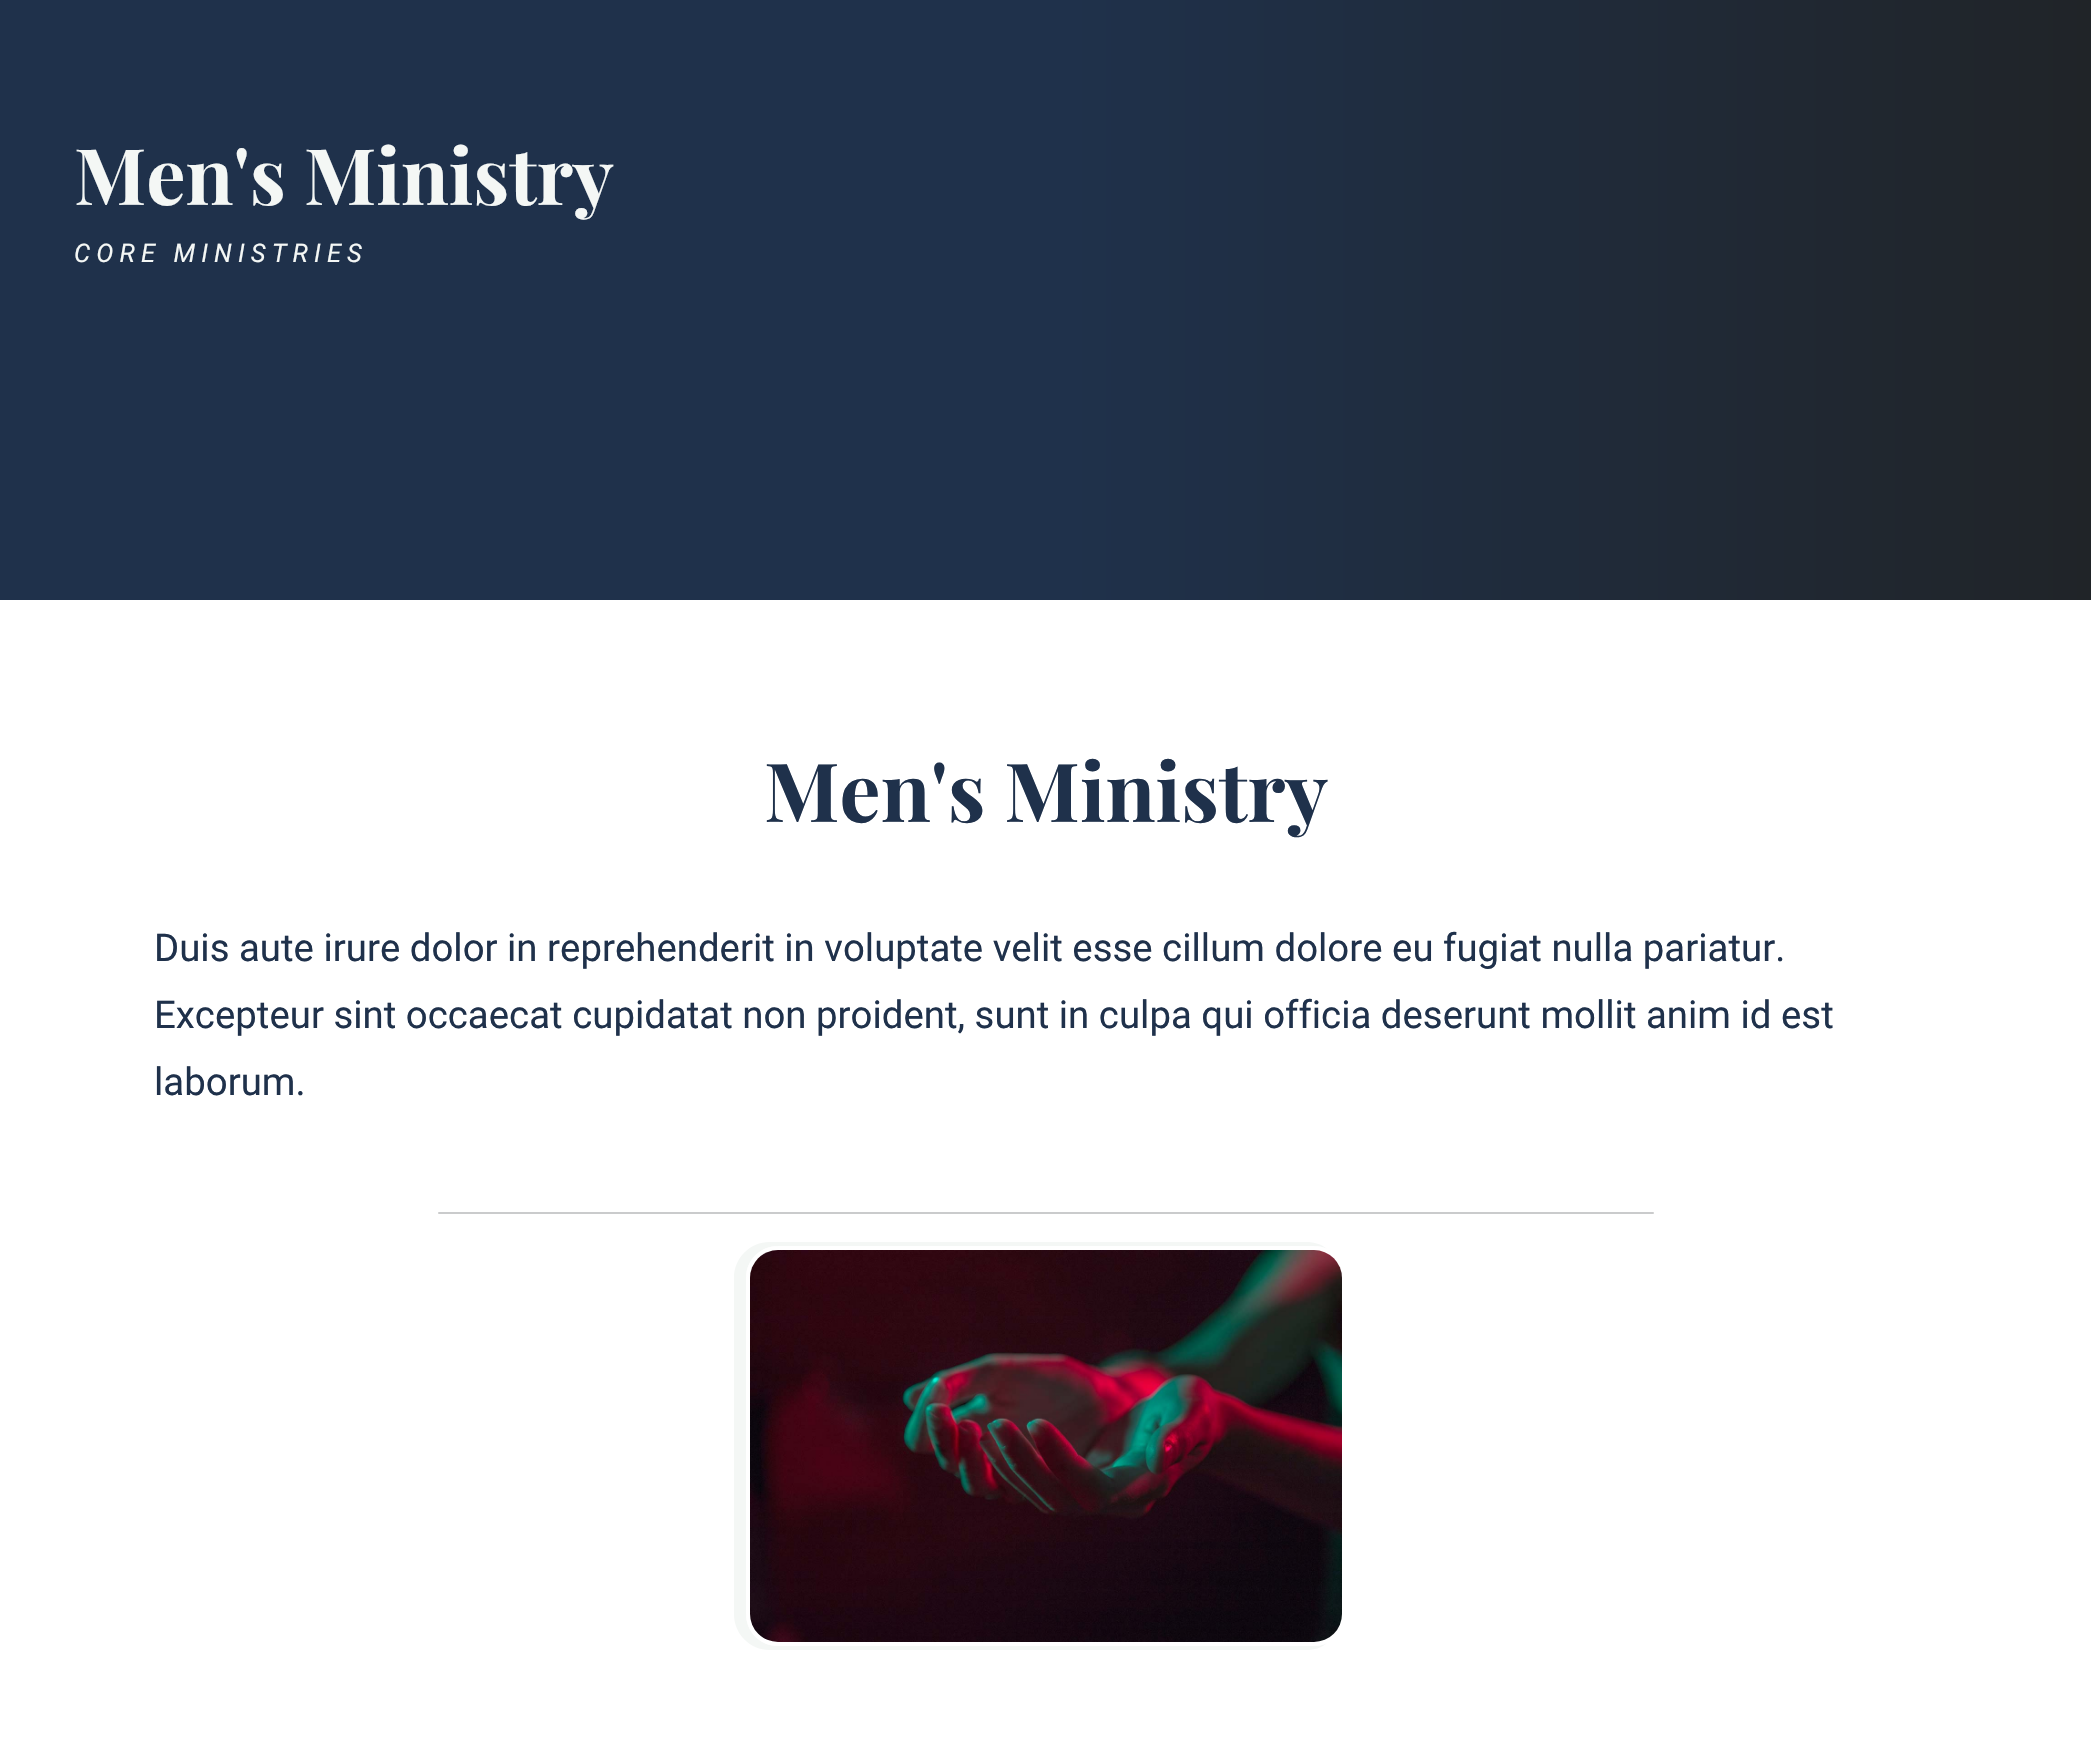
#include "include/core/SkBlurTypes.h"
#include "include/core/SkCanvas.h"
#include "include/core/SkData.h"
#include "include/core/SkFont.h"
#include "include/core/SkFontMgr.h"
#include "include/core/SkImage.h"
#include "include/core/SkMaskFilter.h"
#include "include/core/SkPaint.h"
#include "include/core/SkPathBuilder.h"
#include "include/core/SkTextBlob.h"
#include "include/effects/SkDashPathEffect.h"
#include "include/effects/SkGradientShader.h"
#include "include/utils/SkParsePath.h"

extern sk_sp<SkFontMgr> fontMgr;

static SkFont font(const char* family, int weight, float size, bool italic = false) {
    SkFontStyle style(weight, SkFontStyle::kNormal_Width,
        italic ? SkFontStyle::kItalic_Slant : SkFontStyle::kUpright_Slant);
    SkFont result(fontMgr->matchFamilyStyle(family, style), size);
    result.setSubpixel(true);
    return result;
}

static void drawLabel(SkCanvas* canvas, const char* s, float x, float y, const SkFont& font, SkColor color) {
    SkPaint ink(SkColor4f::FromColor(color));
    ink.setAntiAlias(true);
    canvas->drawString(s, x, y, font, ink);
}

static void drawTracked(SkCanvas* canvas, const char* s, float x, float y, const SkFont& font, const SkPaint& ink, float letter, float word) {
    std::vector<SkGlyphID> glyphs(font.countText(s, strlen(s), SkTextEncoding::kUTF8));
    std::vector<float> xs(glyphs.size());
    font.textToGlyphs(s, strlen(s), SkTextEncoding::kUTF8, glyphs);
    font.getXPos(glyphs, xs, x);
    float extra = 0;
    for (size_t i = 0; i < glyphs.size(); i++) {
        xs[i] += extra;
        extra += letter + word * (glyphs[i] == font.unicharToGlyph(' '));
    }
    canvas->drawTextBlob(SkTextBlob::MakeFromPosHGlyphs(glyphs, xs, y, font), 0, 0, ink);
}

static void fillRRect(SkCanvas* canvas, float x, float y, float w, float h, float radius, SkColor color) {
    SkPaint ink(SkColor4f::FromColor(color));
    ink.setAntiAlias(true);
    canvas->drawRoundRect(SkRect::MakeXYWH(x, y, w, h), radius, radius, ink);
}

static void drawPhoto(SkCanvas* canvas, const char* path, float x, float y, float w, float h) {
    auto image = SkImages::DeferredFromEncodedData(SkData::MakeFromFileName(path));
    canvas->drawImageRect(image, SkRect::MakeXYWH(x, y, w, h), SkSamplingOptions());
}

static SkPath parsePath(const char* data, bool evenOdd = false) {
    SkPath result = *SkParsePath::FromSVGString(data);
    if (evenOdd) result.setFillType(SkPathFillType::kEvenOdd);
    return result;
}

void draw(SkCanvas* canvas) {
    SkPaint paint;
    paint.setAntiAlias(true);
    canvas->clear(0xFFFFFFFF);
    {
        const SkColor colors[] = {0xFF1F314B, 0xFF1F314B, 0xFF202428};
        const float stops[] = {0, 0.51f, 1};
        const SkPoint ends[] = {{0, 250}, {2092, 250}};
        paint.setShader(SkGradientShader::MakeLinear(ends, colors, stops, 3, SkTileMode::kClamp));
        paint.setAlpha(255);
    }
    canvas->drawRect(SkRect::MakeXYWH(0, 0, 2091, 600), paint);
    SkFont font1 = font("Playfair Display", 700, 78);
    drawLabel(canvas, "Men's Ministry", 74, 205, font1, 0xFFF4F7F5);
    SkFont font2 = font("Roboto", 400, 25.6f, true);
    paint.setShader(nullptr);
    paint.setColor(0xFFF4F7F5);
    drawTracked(canvas, "CORE MINISTRIES", 74, 262, font2, paint, 6, 0);
    SkFont font3 = font("Playfair Display", 700, 81.5f);
    drawLabel(canvas, "Men's Ministry", 764, 822, font3, 0xFF1F314B);
    SkFont font4 = font("Roboto", 400, 38.4f);
    drawLabel(canvas, "Duis aute irure dolor in reprehenderit in voluptate velit esse cillum dolore eu fugiat nulla pariatur.", 154, 961, font4, 0xFF1F314B);
    drawLabel(canvas, "Excepteur sint occaecat cupidatat non proident, sunt in culpa qui officia deserunt mollit anim id est", 154, 1028, font4, 0xFF1F314B);
    drawLabel(canvas, "laborum.", 154, 1095, font4, 0xFF1F314B);
    fillRRect(canvas, 438, 1212, 1216, 2, 1, 0xFFCACBCC);
    canvas->drawPath(parsePath("M770 1242C750 1242 734 1258 734 1278V1614C734 1634 750 1650 770 1650H1306C1314 1650 1321 1648 1327 1643C1323 1645 1319 1646 1314 1646H778C760 1646 746 1632 746 1614V1278C746 1260 760 1246 778 1246H1314C1319 1246 1323 1247 1327 1249C1321 1244 1314 1242 1306 1242Z"), paint);
    paint.setStroke(true);
    paint.setStrokeWidth(4);
    paint.setColor(0xFFFFFFFF);
    canvas->drawRoundRect(SkRect::MakeXYWH(748, 1248, 596, 396), 30, 30, paint);
    drawPhoto(canvas, "assets/img1.png", 750, 1250, 592, 392);
}
